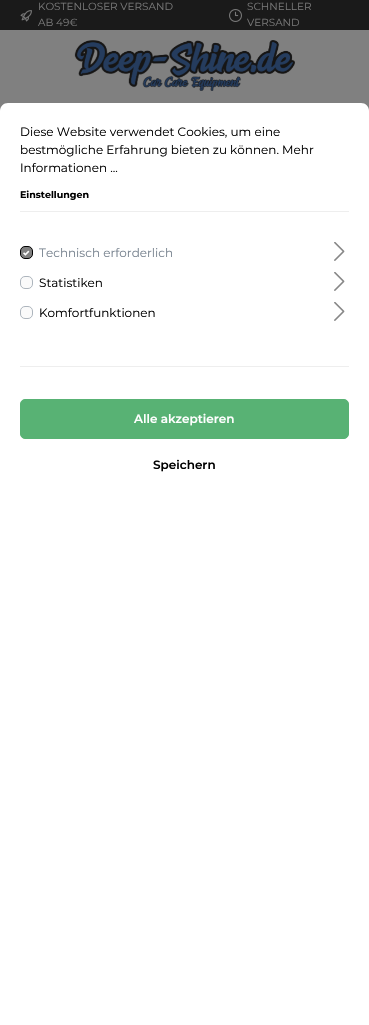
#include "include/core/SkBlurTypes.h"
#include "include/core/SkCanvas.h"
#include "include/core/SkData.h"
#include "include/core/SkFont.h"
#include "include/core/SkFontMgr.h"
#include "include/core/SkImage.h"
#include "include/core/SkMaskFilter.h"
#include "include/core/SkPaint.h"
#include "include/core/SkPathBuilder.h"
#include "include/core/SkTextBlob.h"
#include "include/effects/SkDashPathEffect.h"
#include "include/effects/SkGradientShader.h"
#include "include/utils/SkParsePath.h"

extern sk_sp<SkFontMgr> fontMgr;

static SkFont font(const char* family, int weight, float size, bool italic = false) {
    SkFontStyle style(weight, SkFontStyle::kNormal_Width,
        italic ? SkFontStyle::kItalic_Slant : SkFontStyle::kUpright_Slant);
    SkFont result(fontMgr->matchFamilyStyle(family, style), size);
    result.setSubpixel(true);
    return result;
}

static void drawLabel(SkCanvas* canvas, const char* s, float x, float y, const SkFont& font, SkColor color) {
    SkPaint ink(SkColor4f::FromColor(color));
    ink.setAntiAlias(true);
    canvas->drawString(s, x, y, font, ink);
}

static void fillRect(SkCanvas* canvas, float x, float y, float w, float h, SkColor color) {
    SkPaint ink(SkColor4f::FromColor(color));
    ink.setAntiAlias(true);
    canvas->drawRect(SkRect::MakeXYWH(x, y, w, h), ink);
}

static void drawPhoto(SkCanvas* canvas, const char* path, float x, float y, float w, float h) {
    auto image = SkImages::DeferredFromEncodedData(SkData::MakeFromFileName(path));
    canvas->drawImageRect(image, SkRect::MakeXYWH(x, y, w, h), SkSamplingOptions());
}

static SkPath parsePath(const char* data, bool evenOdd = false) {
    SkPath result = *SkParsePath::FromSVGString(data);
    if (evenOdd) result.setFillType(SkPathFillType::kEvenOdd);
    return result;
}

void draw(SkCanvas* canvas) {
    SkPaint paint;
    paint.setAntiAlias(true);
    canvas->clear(0xFF808080);
    fillRect(canvas, 0, 0, 369, 30, 0xFF1A1A1A);
    drawPhoto(canvas, "assets/img1.png", 20, 10, 12, 12);
    SkFont font1 = font("Montserrat", 100, 10.4f);
    drawLabel(canvas, "KOSTENLOSER VERSAND", 38, 10, font1, 0xFF777777);
    drawLabel(canvas, "AB 49€", 38, 26, font1, 0xFF777777);
    drawPhoto(canvas, "assets/img2.png", 229, 9, 13, 13);
    drawLabel(canvas, "SCHNELLER", 247, 10, font1, 0xFF777777);
    drawLabel(canvas, "VERSAND", 247, 26, font1, 0xFF777777);
    drawPhoto(canvas, "assets/img3.png", 74, 40, 221, 51);
    paint.setColor(0xFFFFFFFF);
    canvas->drawPath(parsePath("M8 103H361C365.5 103 369 106.5 369 111V1025H0V111C0 106.5 3.5 103 8 103Z"), paint);
    fillRect(canvas, 20, 211, 329, 1, 0xFFEEEEEE);
    SkFont font2 = font("Montserrat", 100, 12);
    drawLabel(canvas, "Diese Website verwendet Cookies, um eine", 20, 136, font2, 0xFF000000);
    drawLabel(canvas, "bestmögliche Erfahrung bieten zu können. Mehr", 20, 154, font2, 0xFF000000);
    drawLabel(canvas, "Informationen ...", 20, 172, font2, 0xFF000000);
    SkFont font3 = font("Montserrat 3", 100, 9.5f);
    drawLabel(canvas, "Einstellungen", 20, 198, font3, 0xFF000000);
    fillRect(canvas, 20, 366, 329, 1, 0xFFEEEEEE);
    paint.setColor(0xFF808080);
    canvas->drawRoundRect(SkRect::MakeXYWH(20.5f, 246.5f, 12, 12), 4.5f, 4.5f, paint);
    paint.setStroke(true);
    paint.setStrokeWidth(1);
    paint.setColor(0xFF000000);
    canvas->drawRoundRect(SkRect::MakeXYWH(20.5f, 246.5f, 12, 12), 4.5f, 4.5f, paint);
    drawLabel(canvas, "Technisch erforderlich", 39, 257, font2, 0xFF798490);
    drawPhoto(canvas, "assets/img4.png", 23, 250, 7, 6);
    drawPhoto(canvas, "assets/img5.png", 334, 242, 11, 19);
    paint.setStroke(false);
    paint.setColor(0xFFFAFAFA);
    canvas->drawRoundRect(SkRect::MakeXYWH(20.5f, 276.5f, 12, 12), 4.5f, 4.5f, paint);
    paint.setStroke(true);
    paint.setColor(0xFFADB5BD);
    canvas->drawRoundRect(SkRect::MakeXYWH(20.5f, 276.5f, 12, 12), 4.5f, 4.5f, paint);
    drawLabel(canvas, "Statistiken", 39, 287, font2, 0xFF000000);
    drawPhoto(canvas, "assets/img5.png", 334, 272, 11, 19);
    paint.setStroke(false);
    paint.setColor(0xFFFAFAFA);
    canvas->drawRoundRect(SkRect::MakeXYWH(20.5f, 306.5f, 12, 12), 4.5f, 4.5f, paint);
    paint.setStroke(true);
    paint.setColor(0xFFADB5BD);
    canvas->drawRoundRect(SkRect::MakeXYWH(20.5f, 306.5f, 12, 12), 4.5f, 4.5f, paint);
    drawLabel(canvas, "Komfortfunktionen", 39, 317, font2, 0xFF000000);
    drawPhoto(canvas, "assets/img5.png", 334, 302, 11, 19);
    paint.setStroke(false);
    paint.setColor(0xFF58B274);
    canvas->drawRoundRect(SkRect::MakeXYWH(20.5f, 399.5f, 328, 39), 4.5f, 4.5f, paint);
    paint.setStroke(true);
    canvas->drawRoundRect(SkRect::MakeXYWH(20.5f, 399.5f, 328, 39), 4.5f, 4.5f, paint);
    SkFont font4 = font("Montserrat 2", 100, 12);
    drawLabel(canvas, "Alle akzeptieren", 134, 423, font4, 0xFFFFFFFF);
    drawLabel(canvas, "Speichern", 153, 469, font4, 0xFF000000);
}
